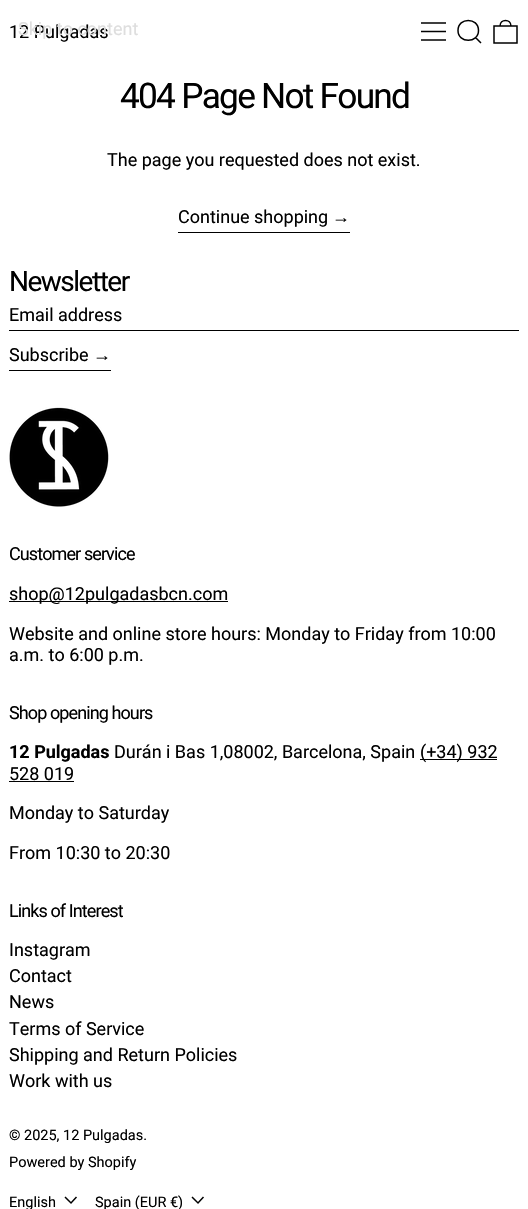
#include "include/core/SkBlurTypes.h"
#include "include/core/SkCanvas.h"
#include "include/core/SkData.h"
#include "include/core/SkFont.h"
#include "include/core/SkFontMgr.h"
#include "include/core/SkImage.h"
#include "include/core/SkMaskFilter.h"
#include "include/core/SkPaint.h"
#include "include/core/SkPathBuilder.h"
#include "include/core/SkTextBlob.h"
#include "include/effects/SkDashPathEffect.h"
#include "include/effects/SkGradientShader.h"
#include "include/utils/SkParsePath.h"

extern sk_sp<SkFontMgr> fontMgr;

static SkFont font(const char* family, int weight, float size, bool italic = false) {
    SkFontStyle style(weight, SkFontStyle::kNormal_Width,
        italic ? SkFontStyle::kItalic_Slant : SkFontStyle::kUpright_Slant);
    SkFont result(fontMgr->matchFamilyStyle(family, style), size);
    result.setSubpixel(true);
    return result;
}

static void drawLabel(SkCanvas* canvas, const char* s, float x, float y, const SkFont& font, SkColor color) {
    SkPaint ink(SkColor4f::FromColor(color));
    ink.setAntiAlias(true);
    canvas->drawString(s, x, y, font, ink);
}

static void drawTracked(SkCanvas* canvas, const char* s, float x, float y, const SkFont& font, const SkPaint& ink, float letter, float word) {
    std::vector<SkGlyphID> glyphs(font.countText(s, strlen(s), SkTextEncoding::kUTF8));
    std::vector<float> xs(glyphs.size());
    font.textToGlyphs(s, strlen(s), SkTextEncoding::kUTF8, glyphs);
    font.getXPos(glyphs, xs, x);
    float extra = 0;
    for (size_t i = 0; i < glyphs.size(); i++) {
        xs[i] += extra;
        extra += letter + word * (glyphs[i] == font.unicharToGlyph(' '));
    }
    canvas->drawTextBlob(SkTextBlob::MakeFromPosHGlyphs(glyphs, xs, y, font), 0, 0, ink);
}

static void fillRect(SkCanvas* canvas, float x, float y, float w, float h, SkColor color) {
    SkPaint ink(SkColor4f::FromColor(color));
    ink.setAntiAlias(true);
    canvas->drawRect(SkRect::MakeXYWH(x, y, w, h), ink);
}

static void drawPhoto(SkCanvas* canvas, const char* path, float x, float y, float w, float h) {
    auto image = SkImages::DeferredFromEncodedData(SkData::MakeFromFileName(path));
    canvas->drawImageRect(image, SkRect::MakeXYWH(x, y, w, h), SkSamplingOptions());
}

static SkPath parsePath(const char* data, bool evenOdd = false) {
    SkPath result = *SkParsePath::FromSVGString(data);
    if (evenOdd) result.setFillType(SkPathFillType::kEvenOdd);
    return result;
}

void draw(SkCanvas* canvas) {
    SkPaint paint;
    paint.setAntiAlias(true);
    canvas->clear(0xFFFFFFFF);
    SkFont font1 = font("Roboto", 400, 18);
    drawLabel(canvas, "12 Pulgadas", 9, 38, font1, 0xFF000000);
    drawLabel(canvas, "Skip to content", 18, 35, font1, 0xFFDEDEDE);
    paint.setStroke(true);
    paint.setStrokeWidth(1.5f);
    paint.setColor(0xFF000000);
    canvas->drawPath(parsePath("M421 23H446M421 31.5H446M421 40H446M458 30.5C458 43.5 478.5 43.5 478.5 30.5C478.5 17 458 17 458 30.5ZM475.5 37.5L481 43"), paint);
    canvas->drawPath(parsePath("M494 26H517V43H494ZM511 26C511 18.5 500 18.5 500 26"), paint);
    SkFont font2 = font("Roboto", 400, 35.25f);
    paint.setStroke(false);
    drawTracked(canvas, "404 Page Not Found", 120, 108, font2, paint, -1.75f, 0);
    drawLabel(canvas, "The page you requested does not exist.", 107, 166, font1, 0xFF000000);
    fillRect(canvas, 178, 232, 172, 1, 0xFF000000);
    drawLabel(canvas, "Continue shopping", 178, 223, font1, 0xFF000000);
    SkFont font3 = font("Liberation Sans", 400, 18);
    drawLabel(canvas, "→", 332, 223, font3, 0xFF000000);
    SkFont font4 = font("Roboto", 400, 28);
    drawTracked(canvas, "Newsletter", 9, 291, font4, paint, -1.5f, 0);
    fillRect(canvas, 9, 330, 510, 1, 0xFF000000);
    drawLabel(canvas, "Email address", 9, 321, font1, 0xFF000000);
    fillRect(canvas, 9, 370, 102, 1, 0xFF000000);
    drawLabel(canvas, "Subscribe", 9, 361, font1, 0xFF000000);
    drawLabel(canvas, "→", 93, 361, font3, 0xFF000000);
    drawPhoto(canvas, "assets/img1.png", 9, 407, 100, 100);
    drawTracked(canvas, "Customer service", 9, 560, font1, paint, -0.9f, 0);
    fillRect(canvas, 9, 601, 219, 1, 0xFF000000);
    drawLabel(canvas, "shop@12pulgadasbcn.com", 9, 600, font1, 0xFF000000);
    drawLabel(canvas, "Website and online store hours: Monday to Friday from 10:00", 9, 640, font1, 0xFF000000);
    drawLabel(canvas, "a.m. to 6:00 p.m.", 9, 661, font1, 0xFF000000);
    drawTracked(canvas, "Shop opening hours", 9, 719, font1, paint, -0.9f, 0);
    SkFont font5 = font("Roboto", 700, 18);
    drawLabel(canvas, "12 Pulgadas", 9, 758, font5, 0xFF000000);
    drawLabel(canvas, "Durán i Bas 1,08002, Barcelona, Spain", 114, 758, font1, 0xFF000000);
    fillRect(canvas, 420, 759, 77, 1, 0xFF000000);
    drawLabel(canvas, "(+34) 932", 420, 758, font1, 0xFF000000);
    drawLabel(canvas, "528 019", 9, 780, font1, 0xFF000000);
    fillRect(canvas, 9, 781, 65, 1, 0xFF000000);
    drawLabel(canvas, "Monday to Saturday", 9, 819, font1, 0xFF000000);
    drawLabel(canvas, "From 10:30 to 20:30", 9, 859, font1, 0xFF000000);
    drawTracked(canvas, "Links of Interest", 9, 917, font1, paint, -0.9f, 0);
    drawLabel(canvas, "Instagram", 9, 956, font1, 0xFF000000);
    drawLabel(canvas, "Contact", 9, 982, font1, 0xFF000000);
    drawLabel(canvas, "News", 9, 1008, font1, 0xFF000000);
    drawLabel(canvas, "Terms of Service", 9, 1035, font1, 0xFF000000);
    drawLabel(canvas, "Shipping and Return Policies", 9, 1061, font1, 0xFF000000);
    drawLabel(canvas, "Work with us", 9, 1087, font1, 0xFF000000);
    SkFont font6 = font("Roboto", 400, 14.5f);
    drawLabel(canvas, "© 2025, 12 Pulgadas.", 9, 1140, font6, 0xFF000000);
    drawLabel(canvas, "Powered by Shopify", 9, 1167, font6, 0xFF000000);
    drawLabel(canvas, "English", 9, 1207, font6, 0xFF000000);
    paint.setStroke(true);
    canvas->drawPath(parsePath("M65 1197L71 1203L76.5 1197"), paint);
    drawLabel(canvas, "Spain (EUR €)", 95, 1207, font6, 0xFF000000);
    canvas->drawPath(parsePath("M192 1197L198 1203L203.5 1197"), paint);
}
